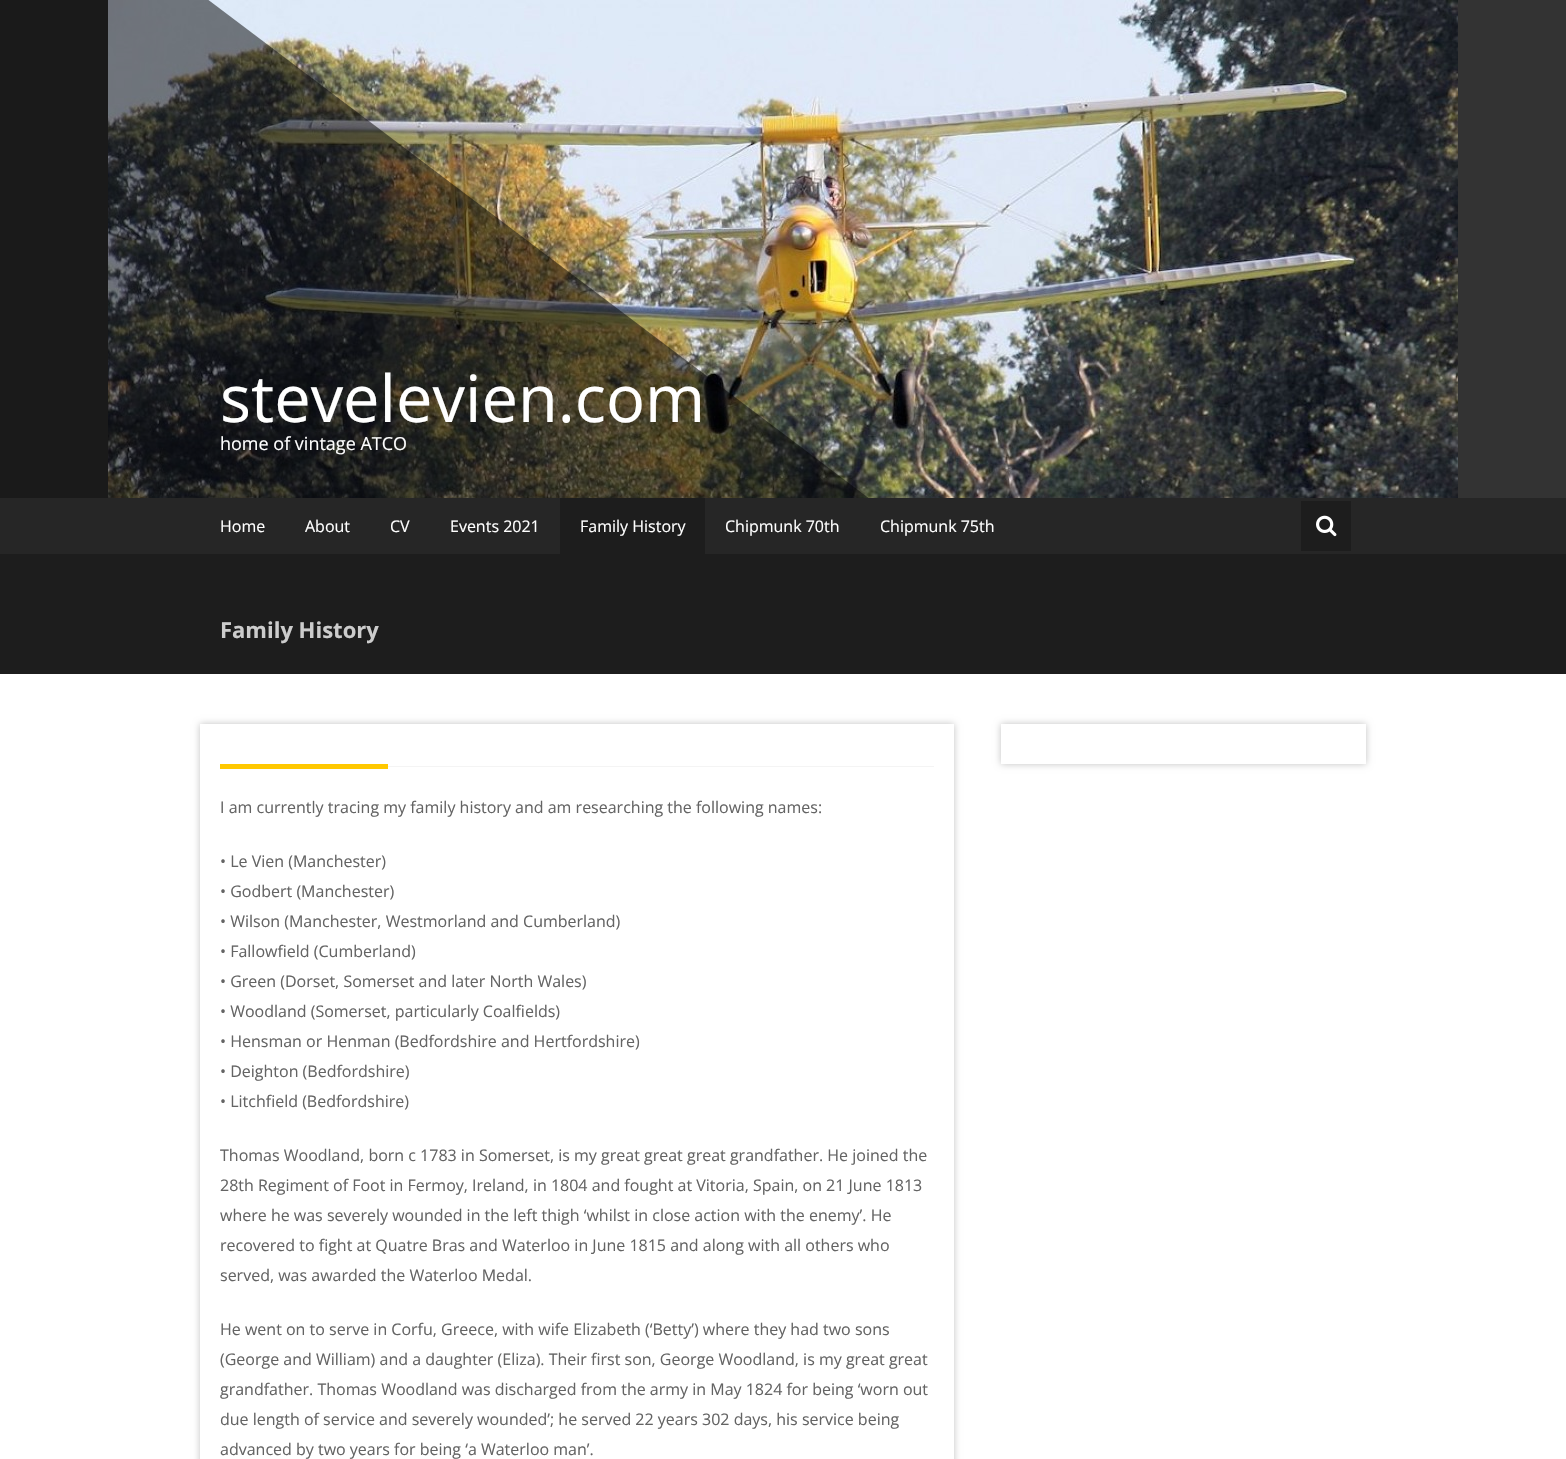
#include "include/core/SkBlurTypes.h"
#include "include/core/SkCanvas.h"
#include "include/core/SkData.h"
#include "include/core/SkFont.h"
#include "include/core/SkFontMgr.h"
#include "include/core/SkImage.h"
#include "include/core/SkMaskFilter.h"
#include "include/core/SkPaint.h"
#include "include/core/SkPathBuilder.h"
#include "include/core/SkTextBlob.h"
#include "include/effects/SkDashPathEffect.h"
#include "include/effects/SkGradientShader.h"
#include "include/utils/SkParsePath.h"

extern sk_sp<SkFontMgr> fontMgr;

static SkFont font(const char* family, int weight, float size, bool italic = false) {
    SkFontStyle style(weight, SkFontStyle::kNormal_Width,
        italic ? SkFontStyle::kItalic_Slant : SkFontStyle::kUpright_Slant);
    SkFont result(fontMgr->matchFamilyStyle(family, style), size);
    result.setSubpixel(true);
    return result;
}

static void drawLabel(SkCanvas* canvas, const char* s, float x, float y, const SkFont& font, SkColor color) {
    SkPaint ink(SkColor4f::FromColor(color));
    ink.setAntiAlias(true);
    canvas->drawString(s, x, y, font, ink);
}

static void fillRect(SkCanvas* canvas, float x, float y, float w, float h, SkColor color) {
    SkPaint ink(SkColor4f::FromColor(color));
    ink.setAntiAlias(true);
    canvas->drawRect(SkRect::MakeXYWH(x, y, w, h), ink);
}

static void drawPhoto(SkCanvas* canvas, const char* path, float x, float y, float w, float h) {
    auto image = SkImages::DeferredFromEncodedData(SkData::MakeFromFileName(path));
    canvas->drawImageRect(image, SkRect::MakeXYWH(x, y, w, h), SkSamplingOptions());
}

static SkPath parsePath(const char* data, bool evenOdd = false) {
    SkPath result = *SkParsePath::FromSVGString(data);
    if (evenOdd) result.setFillType(SkPathFillType::kEvenOdd);
    return result;
}

void draw(SkCanvas* canvas) {
    SkPaint paint;
    paint.setAntiAlias(true);
    canvas->clear(0xFFFFFFFF);
    fillRect(canvas, 0, 0, 1566, 498, 0xFF333333);
    drawPhoto(canvas, "assets/img1.png", 108, 0, 1350, 498);
    canvas->save();
    canvas->clipRect(SkRect::MakeXYWH(0, 0, 1566, 498));
    paint.setColor(0x80000000);
    canvas->drawPath(parsePath("M-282-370L968 573L366 1372L-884 429Z"), paint);
    canvas->restore();
    SkFont font1 = font("Open Sans", 400, 65);
    drawLabel(canvas, "stevelevien.com", 220, 422, font1, 0xFFFFFFFF);
    SkFont font2 = font("Open Sans", 400, 18);
    drawLabel(canvas, "home of vintage ATCO", 220, 450, font2, 0xFFFFFFFF);
    fillRect(canvas, 0, 498, 1566, 56, 0xFF262626);
    SkFont font3 = font("Open Sans", 400, 16);
    drawLabel(canvas, "Home", 220, 532, font3, 0xFFFFFFFF);
    drawLabel(canvas, "About", 305, 532, font3, 0xFFFFFFFF);
    drawLabel(canvas, "CV", 390, 532, font3, 0xFFFFFFFF);
    drawLabel(canvas, "Events 2021", 450, 532, font3, 0xFFFFFFFF);
    fillRect(canvas, 560, 498, 145, 56, 0xFF1D1D1D);
    drawLabel(canvas, "Family History", 580, 532, font3, 0xFFFFFFFF);
    drawLabel(canvas, "Chipmunk 70th", 725, 532, font3, 0xFFFFFFFF);
    drawLabel(canvas, "Chipmunk 75th", 880, 532, font3, 0xFFFFFFFF);
    fillRect(canvas, 1301, 501, 50, 50, 0xFF1D1D1D);
    drawPhoto(canvas, "assets/img2.png", 1316, 515, 21, 22);
    fillRect(canvas, 0, 554, 1566, 120, 0xFF1D1D1D);
    SkFont font4 = font("Open Sans", 700, 22);
    drawLabel(canvas, "Family History", 220, 638, font4, 0xFFCCCCCC);
    canvas->save();
    canvas->clipPath(parsePath("M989 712H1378V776H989ZM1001 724H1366V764H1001Z", true), true);
    paint.setColor(0xFFC2C2C2);
    paint.setMaskFilter(SkMaskFilter::MakeBlur(kNormal_SkBlurStyle, 3.5f));
    canvas->drawRect(SkRect::MakeXYWH(1001, 724, 365, 40), paint);
    paint.setMaskFilter(nullptr);
    canvas->restore();
    canvas->save();
    canvas->clipPath(parsePath("M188 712H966V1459H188ZM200 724H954V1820H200Z", true), true);
    paint.setMaskFilter(SkMaskFilter::MakeBlur(kNormal_SkBlurStyle, 3.5f));
    canvas->drawRect(SkRect::MakeXYWH(200, 724, 754, 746), paint);
    paint.setMaskFilter(nullptr);
    canvas->restore();
    fillRect(canvas, 220, 764, 168, 5, 0xFFFFC800);
    fillRect(canvas, 388, 766, 546, 1, 0xFFF4F4F4);
    drawLabel(canvas, "I am currently tracing my family history and am researching the following names:", 220, 813, font3, 0xFF646464);
    drawLabel(canvas, "• Le Vien (Manchester)", 220, 867, font3, 0xFF646464);
    drawLabel(canvas, "• Godbert (Manchester)", 220, 897, font3, 0xFF646464);
    drawLabel(canvas, "• Wilson (Manchester, Westmorland and Cumberland)", 220, 927, font3, 0xFF646464);
    drawLabel(canvas, "• Fallowfield (Cumberland)", 220, 957, font3, 0xFF646464);
    drawLabel(canvas, "• Green (Dorset, Somerset and later North Wales)", 220, 987, font3, 0xFF646464);
    drawLabel(canvas, "• Woodland (Somerset, particularly Coalfields)", 220, 1017, font3, 0xFF646464);
    drawLabel(canvas, "• Hensman or Henman (Bedfordshire and Hertfordshire)", 220, 1047, font3, 0xFF646464);
    drawLabel(canvas, "• Deighton (Bedfordshire)", 220, 1077, font3, 0xFF646464);
    drawLabel(canvas, "• Litchfield (Bedfordshire)", 220, 1107, font3, 0xFF646464);
    drawLabel(canvas, "Thomas Woodland, born c 1783 in Somerset, is my great great great grandfather. He joined the", 220, 1161, font3, 0xFF646464);
    drawLabel(canvas, "28th Regiment of Foot in Fermoy, Ireland, in 1804 and fought at Vitoria, Spain, on 21 June 1813", 220, 1191, font3, 0xFF646464);
    drawLabel(canvas, "where he was severely wounded in the left thigh ‘whilst in close action with the enemy’. He", 220, 1221, font3, 0xFF646464);
    drawLabel(canvas, "recovered to fight at Quatre Bras and Waterloo in June 1815 and along with all others who", 220, 1251, font3, 0xFF646464);
    drawLabel(canvas, "served, was awarded the Waterloo Medal.", 220, 1281, font3, 0xFF646464);
    drawLabel(canvas, "He went on to serve in Corfu, Greece, with wife Elizabeth (‘Betty’) where they had two sons", 220, 1335, font3, 0xFF646464);
    drawLabel(canvas, "(George and William) and a daughter (Eliza). Their first son, George Woodland, is my great great", 220, 1365, font3, 0xFF646464);
    drawLabel(canvas, "grandfather. Thomas Woodland was discharged from the army in May 1824 for being ‘worn out", 220, 1395, font3, 0xFF646464);
    drawLabel(canvas, "due length of service and severely wounded’; he served 22 years 302 days, his service being", 220, 1425, font3, 0xFF646464);
    drawLabel(canvas, "advanced by two years for being ‘a Waterloo man’.", 220, 1455, font3, 0xFF646464);
}
